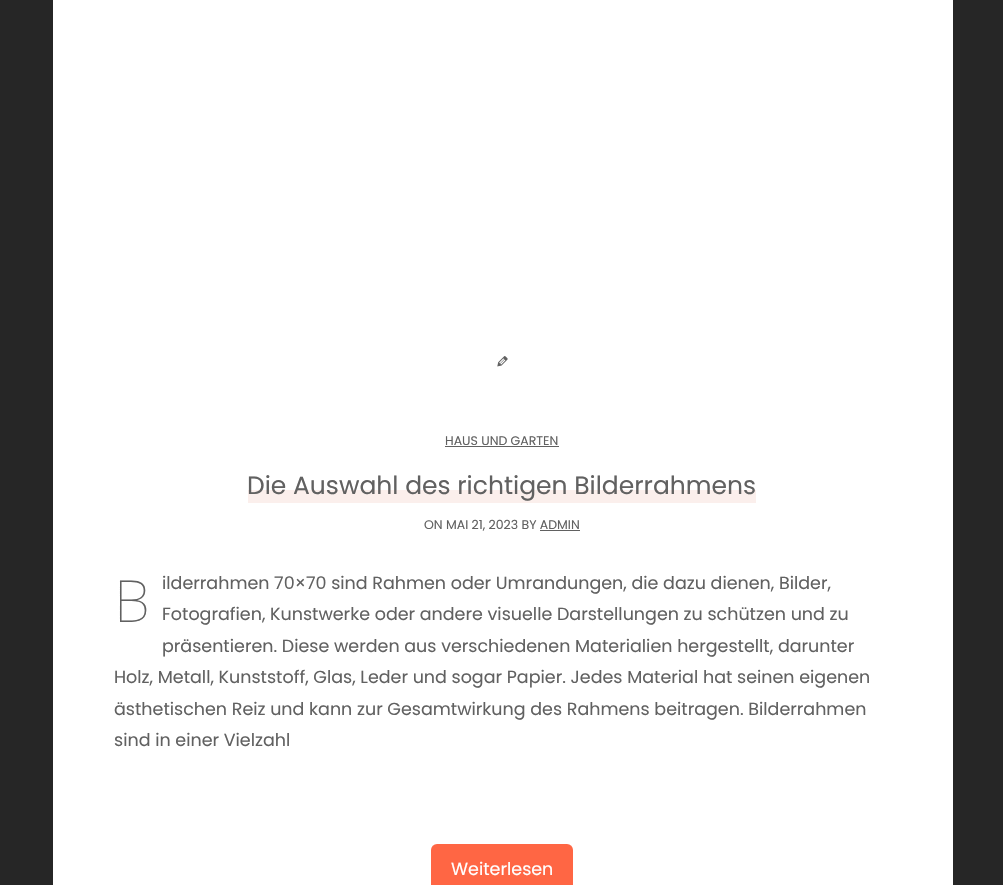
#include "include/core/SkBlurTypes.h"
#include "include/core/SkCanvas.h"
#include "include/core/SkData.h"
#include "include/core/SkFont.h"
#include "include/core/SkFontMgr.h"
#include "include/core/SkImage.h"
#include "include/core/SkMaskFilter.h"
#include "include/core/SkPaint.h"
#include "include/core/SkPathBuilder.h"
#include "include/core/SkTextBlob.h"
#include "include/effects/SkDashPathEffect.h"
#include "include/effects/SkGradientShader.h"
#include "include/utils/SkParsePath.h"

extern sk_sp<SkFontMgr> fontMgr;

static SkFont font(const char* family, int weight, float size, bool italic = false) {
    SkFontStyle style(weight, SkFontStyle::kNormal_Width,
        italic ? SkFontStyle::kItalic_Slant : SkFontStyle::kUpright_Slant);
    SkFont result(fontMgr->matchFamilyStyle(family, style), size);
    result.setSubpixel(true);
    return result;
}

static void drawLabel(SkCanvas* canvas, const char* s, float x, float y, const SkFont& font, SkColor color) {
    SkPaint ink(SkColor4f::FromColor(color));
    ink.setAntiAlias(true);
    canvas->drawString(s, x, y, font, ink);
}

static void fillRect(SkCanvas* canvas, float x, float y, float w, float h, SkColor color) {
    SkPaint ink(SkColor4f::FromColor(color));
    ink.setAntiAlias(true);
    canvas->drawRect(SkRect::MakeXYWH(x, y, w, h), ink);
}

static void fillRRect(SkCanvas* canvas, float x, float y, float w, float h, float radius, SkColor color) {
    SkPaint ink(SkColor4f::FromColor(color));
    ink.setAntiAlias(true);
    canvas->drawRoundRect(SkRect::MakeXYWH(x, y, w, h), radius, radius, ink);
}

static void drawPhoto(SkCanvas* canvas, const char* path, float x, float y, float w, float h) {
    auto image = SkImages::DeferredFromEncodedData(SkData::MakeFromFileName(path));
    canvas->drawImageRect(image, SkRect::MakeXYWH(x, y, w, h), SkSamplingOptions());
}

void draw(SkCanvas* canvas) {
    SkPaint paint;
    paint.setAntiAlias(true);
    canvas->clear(0xFF262626);
    fillRect(canvas, 53, 0, 900, 885, 0xFFFFFFFF);
    drawPhoto(canvas, "assets/img1.png", 497, 356, 11, 11);
    SkFont font1 = font("Poppins", 400, 12.5f);
    drawLabel(canvas, "HAUS UND GARTEN", 445, 445, font1, 0xFF616161);
    fillRect(canvas, 445, 446, 114, 1, 0xFF616161);
    fillRect(canvas, 248, 490, 508, 13, 0xFFFBEFEC);
    SkFont font2 = font("Poppins", 400, 25);
    drawLabel(canvas, "Die Auswahl des richtigen Bilderrahmens", 247, 494, font2, 0xFF616161);
    drawLabel(canvas, "ON MAI 21, 2023 BY ADMIN", 424, 529, font1, 0xFF616161);
    fillRect(canvas, 540, 530, 40, 1, 0xFF616161);
    SkFont font3 = font("Noto Sans", 100, 58);
    drawLabel(canvas, "B", 114, 622, font3, 0xFF616161);
    SkFont font4 = font("Poppins", 400, 17.5f);
    drawLabel(canvas, "ilderrahmen 70×70 sind Rahmen oder Umrandungen, die dazu dienen, Bilder,", 162, 589, font4, 0xFF616161);
    drawLabel(canvas, "Fotografien, Kunstwerke oder andere visuelle Darstellungen zu schützen und zu", 162, 620, font4, 0xFF616161);
    drawLabel(canvas, "präsentieren. Diese werden aus verschiedenen Materialien hergestellt, darunter", 162, 652, font4, 0xFF616161);
    drawLabel(canvas, "Holz, Metall, Kunststoff, Glas, Leder und sogar Papier. Jedes Material hat seinen eigenen", 114, 683, font4, 0xFF616161);
    drawLabel(canvas, "ästhetischen Reiz und kann zur Gesamtwirkung des Rahmens beitragen. Bilderrahmen", 114, 715, font4, 0xFF616161);
    drawLabel(canvas, "sind in einer Vielzahl", 114, 746, font4, 0xFF616161);
    fillRRect(canvas, 431, 844, 142, 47, 6, 0xFFFF6644);
    drawLabel(canvas, "Weiterlesen", 451, 875, font4, 0xFFFFFFFF);
}
